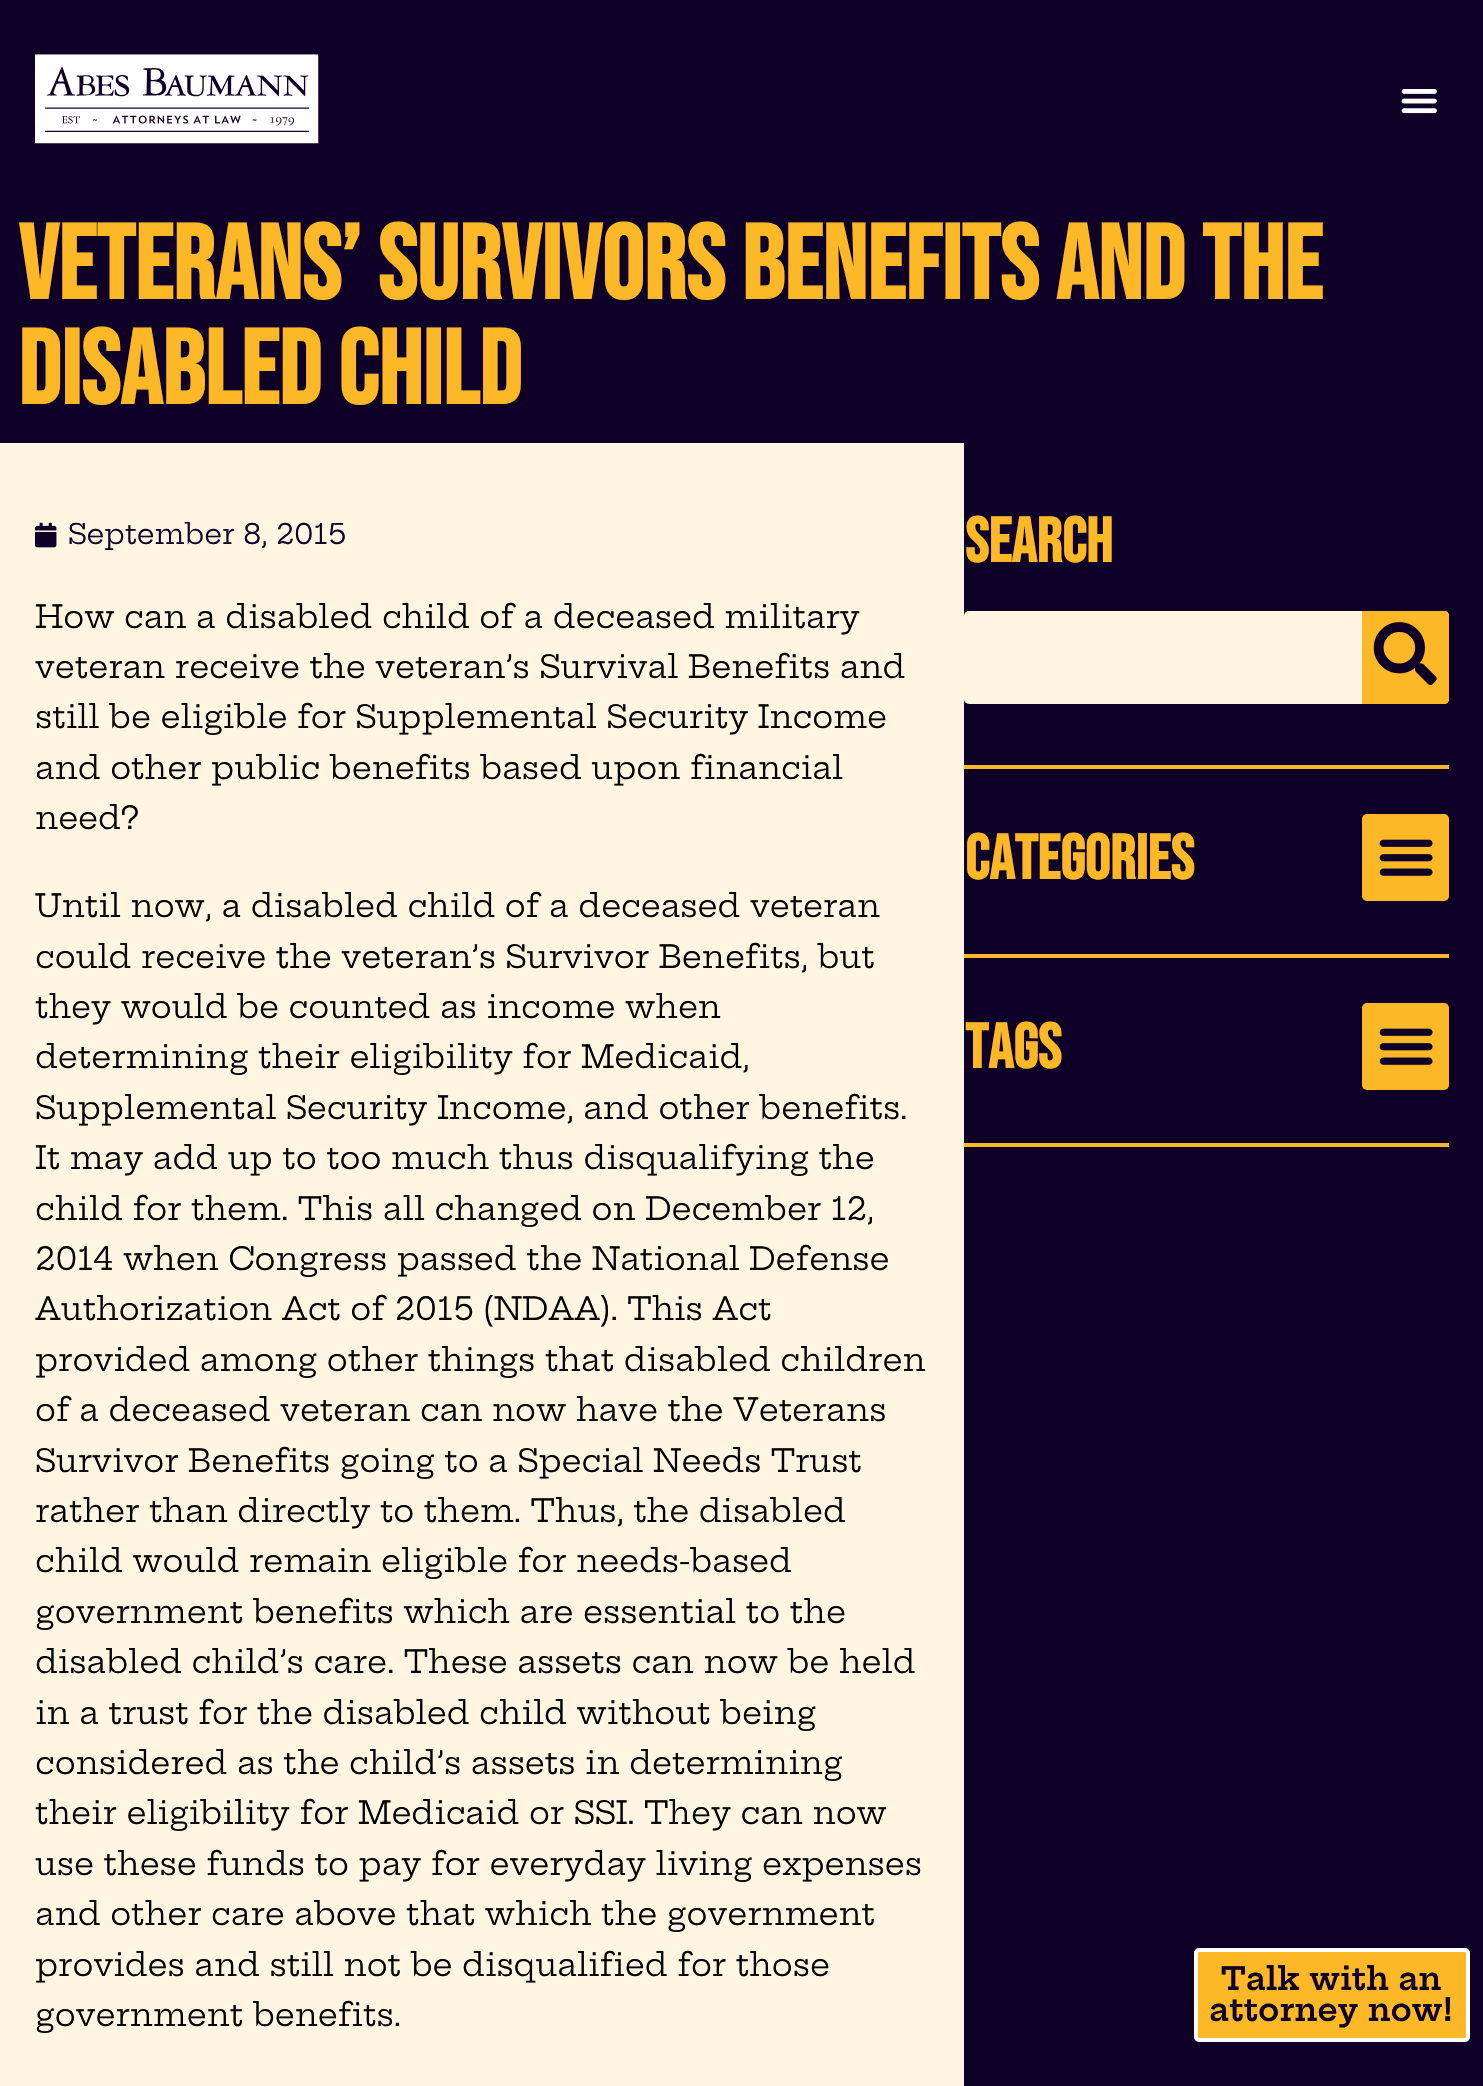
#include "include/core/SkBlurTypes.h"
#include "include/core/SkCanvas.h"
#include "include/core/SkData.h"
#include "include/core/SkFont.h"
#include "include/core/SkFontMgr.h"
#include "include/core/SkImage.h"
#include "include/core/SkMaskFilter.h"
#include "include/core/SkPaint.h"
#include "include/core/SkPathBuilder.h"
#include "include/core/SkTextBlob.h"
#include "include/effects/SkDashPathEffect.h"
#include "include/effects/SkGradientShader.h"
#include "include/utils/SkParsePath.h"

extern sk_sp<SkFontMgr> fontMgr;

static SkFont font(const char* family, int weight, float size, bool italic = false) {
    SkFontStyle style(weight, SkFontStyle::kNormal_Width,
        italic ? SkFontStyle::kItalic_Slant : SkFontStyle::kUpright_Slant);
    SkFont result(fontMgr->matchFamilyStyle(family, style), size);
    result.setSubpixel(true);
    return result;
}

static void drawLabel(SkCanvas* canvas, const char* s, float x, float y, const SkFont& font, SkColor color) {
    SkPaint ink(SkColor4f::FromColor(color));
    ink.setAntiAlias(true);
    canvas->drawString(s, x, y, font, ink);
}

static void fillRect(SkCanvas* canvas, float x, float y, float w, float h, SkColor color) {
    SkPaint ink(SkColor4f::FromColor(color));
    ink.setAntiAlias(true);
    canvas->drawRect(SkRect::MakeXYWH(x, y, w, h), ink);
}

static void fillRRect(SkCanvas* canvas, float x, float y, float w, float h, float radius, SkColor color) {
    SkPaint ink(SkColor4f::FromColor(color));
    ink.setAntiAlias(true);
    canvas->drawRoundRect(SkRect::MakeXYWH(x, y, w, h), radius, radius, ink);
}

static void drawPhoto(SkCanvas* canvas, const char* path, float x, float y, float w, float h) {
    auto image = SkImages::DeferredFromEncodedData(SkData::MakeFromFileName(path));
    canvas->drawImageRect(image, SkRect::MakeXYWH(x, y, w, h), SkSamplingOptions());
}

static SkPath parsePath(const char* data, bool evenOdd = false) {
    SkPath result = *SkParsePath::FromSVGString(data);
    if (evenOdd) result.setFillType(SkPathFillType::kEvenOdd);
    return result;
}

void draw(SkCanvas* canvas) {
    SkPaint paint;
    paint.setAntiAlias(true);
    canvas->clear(0xFF0E0026);
    drawPhoto(canvas, "assets/img1.png", 35, 54, 284, 90);
    drawPhoto(canvas, "assets/img2.png", 1401, 89, 36, 25);
    SkFont font1 = font("Bebas Neue", 700, 105);
    drawLabel(canvas, "VETERANS’ SURVIVORS BENEFITS AND THE", 18, 299, font1, 0xFFFDB827);
    drawLabel(canvas, "DISABLED CHILD", 18, 404, font1, 0xFFFDB827);
    fillRect(canvas, 0, 443, 964, 1643, 0xFFFFF5E0);
    drawPhoto(canvas, "assets/img3.png", 35, 522, 22, 26);
    SkFont font2 = font("Hepta Slab", 400, 28);
    drawLabel(canvas, "September 8, 2015", 68, 544, font2, 0xFF0E0026);
    SkFont font3 = font("Hepta Slab", 400, 31.5f);
    drawLabel(canvas, "How can a disabled child of a deceased military", 35, 628, font3, 0xFF000000);
    drawLabel(canvas, "veteran receive the veteran’s Survival Benefits and", 35, 678, font3, 0xFF000000);
    drawLabel(canvas, "still be eligible for Supplemental Security Income", 35, 728, font3, 0xFF000000);
    drawLabel(canvas, "and other public benefits based upon financial", 35, 779, font3, 0xFF000000);
    drawLabel(canvas, "need?", 35, 829, font3, 0xFF000000);
    drawLabel(canvas, "Until now, a disabled child of a deceased veteran", 35, 917, font3, 0xFF000000);
    drawLabel(canvas, "could receive the veteran’s Survivor Benefits, but", 35, 968, font3, 0xFF000000);
    drawLabel(canvas, "they would be counted as income when", 35, 1018, font3, 0xFF000000);
    drawLabel(canvas, "determining their eligibility for Medicaid,", 35, 1068, font3, 0xFF000000);
    drawLabel(canvas, "Supplemental Security Income, and other benefits.", 35, 1119, font3, 0xFF000000);
    drawLabel(canvas, "It may add up to too much thus disqualifying the", 35, 1169, font3, 0xFF000000);
    drawLabel(canvas, "child for them. This all changed on December 12,", 35, 1220, font3, 0xFF000000);
    drawLabel(canvas, "2014 when Congress passed the National Defense", 35, 1270, font3, 0xFF000000);
    drawLabel(canvas, "Authorization Act of 2015 (NDAA). This Act", 35, 1320, font3, 0xFF000000);
    drawLabel(canvas, "provided among other things that disabled children", 35, 1371, font3, 0xFF000000);
    drawLabel(canvas, "of a deceased veteran can now have the Veterans", 35, 1421, font3, 0xFF000000);
    drawLabel(canvas, "Survivor Benefits going to a Special Needs Trust", 35, 1472, font3, 0xFF000000);
    drawLabel(canvas, "rather than directly to them. Thus, the disabled", 35, 1522, font3, 0xFF000000);
    drawLabel(canvas, "child would remain eligible for needs-based", 35, 1572, font3, 0xFF000000);
    drawLabel(canvas, "government benefits which are essential to the", 35, 1623, font3, 0xFF000000);
    drawLabel(canvas, "disabled child’s care. These assets can now be held", 35, 1673, font3, 0xFF000000);
    drawLabel(canvas, "in a trust for the disabled child without being", 35, 1724, font3, 0xFF000000);
    drawLabel(canvas, "considered as the child’s assets in determining", 35, 1774, font3, 0xFF000000);
    drawLabel(canvas, "their eligibility for Medicaid or SSI. They can now", 35, 1824, font3, 0xFF000000);
    drawLabel(canvas, "use these funds to pay for everyday living expenses", 35, 1875, font3, 0xFF000000);
    drawLabel(canvas, "and other care above that which the government", 35, 1925, font3, 0xFF000000);
    drawLabel(canvas, "provides and still not be disqualified for those", 35, 1976, font3, 0xFF000000);
    drawLabel(canvas, "government benefits.", 35, 2026, font3, 0xFF000000);
    SkFont font4 = font("Bebas Neue", 700, 63);
    drawLabel(canvas, "SEARCH", 965, 562, font4, 0xFFFDB827);
    fillRRect(canvas, 964, 611, 485, 93, 5, 0xFFFFF5E0);
    paint.setColor(0xFFFDB827);
    canvas->drawPath(parsePath("M1362 611H1444C1447 611 1449 613 1449 616V699C1449 702 1447 704 1444 704H1362Z"), paint);
    drawPhoto(canvas, "assets/img4.png", 1373, 622, 64, 64);
    fillRect(canvas, 964, 765, 485, 4, 0xFFFDB827);
    drawLabel(canvas, "Categories", 965, 879, font4, 0xFFFDB827);
    fillRRect(canvas, 1362, 814, 87, 87, 5, 0xFFFDB827);
    drawPhoto(canvas, "assets/img5.png", 1379, 839, 54, 37);
    fillRect(canvas, 964, 954, 485, 4, 0xFFFDB827);
    drawLabel(canvas, "Tags", 965, 1068, font4, 0xFFFDB827);
    fillRRect(canvas, 1362, 1003, 87, 87, 5, 0xFFFDB827);
    drawPhoto(canvas, "assets/img5.png", 1379, 1028, 54, 37);
    fillRect(canvas, 964, 1143, 485, 4, 0xFFFDB827);
    canvas->drawRoundRect(SkRect::MakeXYWH(1196, 1950, 272, 90), 3, 3, paint);
    paint.setStroke(true);
    paint.setStrokeWidth(4);
    paint.setColor(0xFFFFFFFF);
    canvas->drawRoundRect(SkRect::MakeXYWH(1196, 1950, 272, 90), 3, 3, paint);
    SkFont font5 = font("Hepta Slab", 600, 31.5f);
    drawLabel(canvas, "Talk with an", 1221, 1990, font5, 0xFF0E0026);
    drawLabel(canvas, "attorney now!", 1209, 2021, font5, 0xFF0E0026);
}
